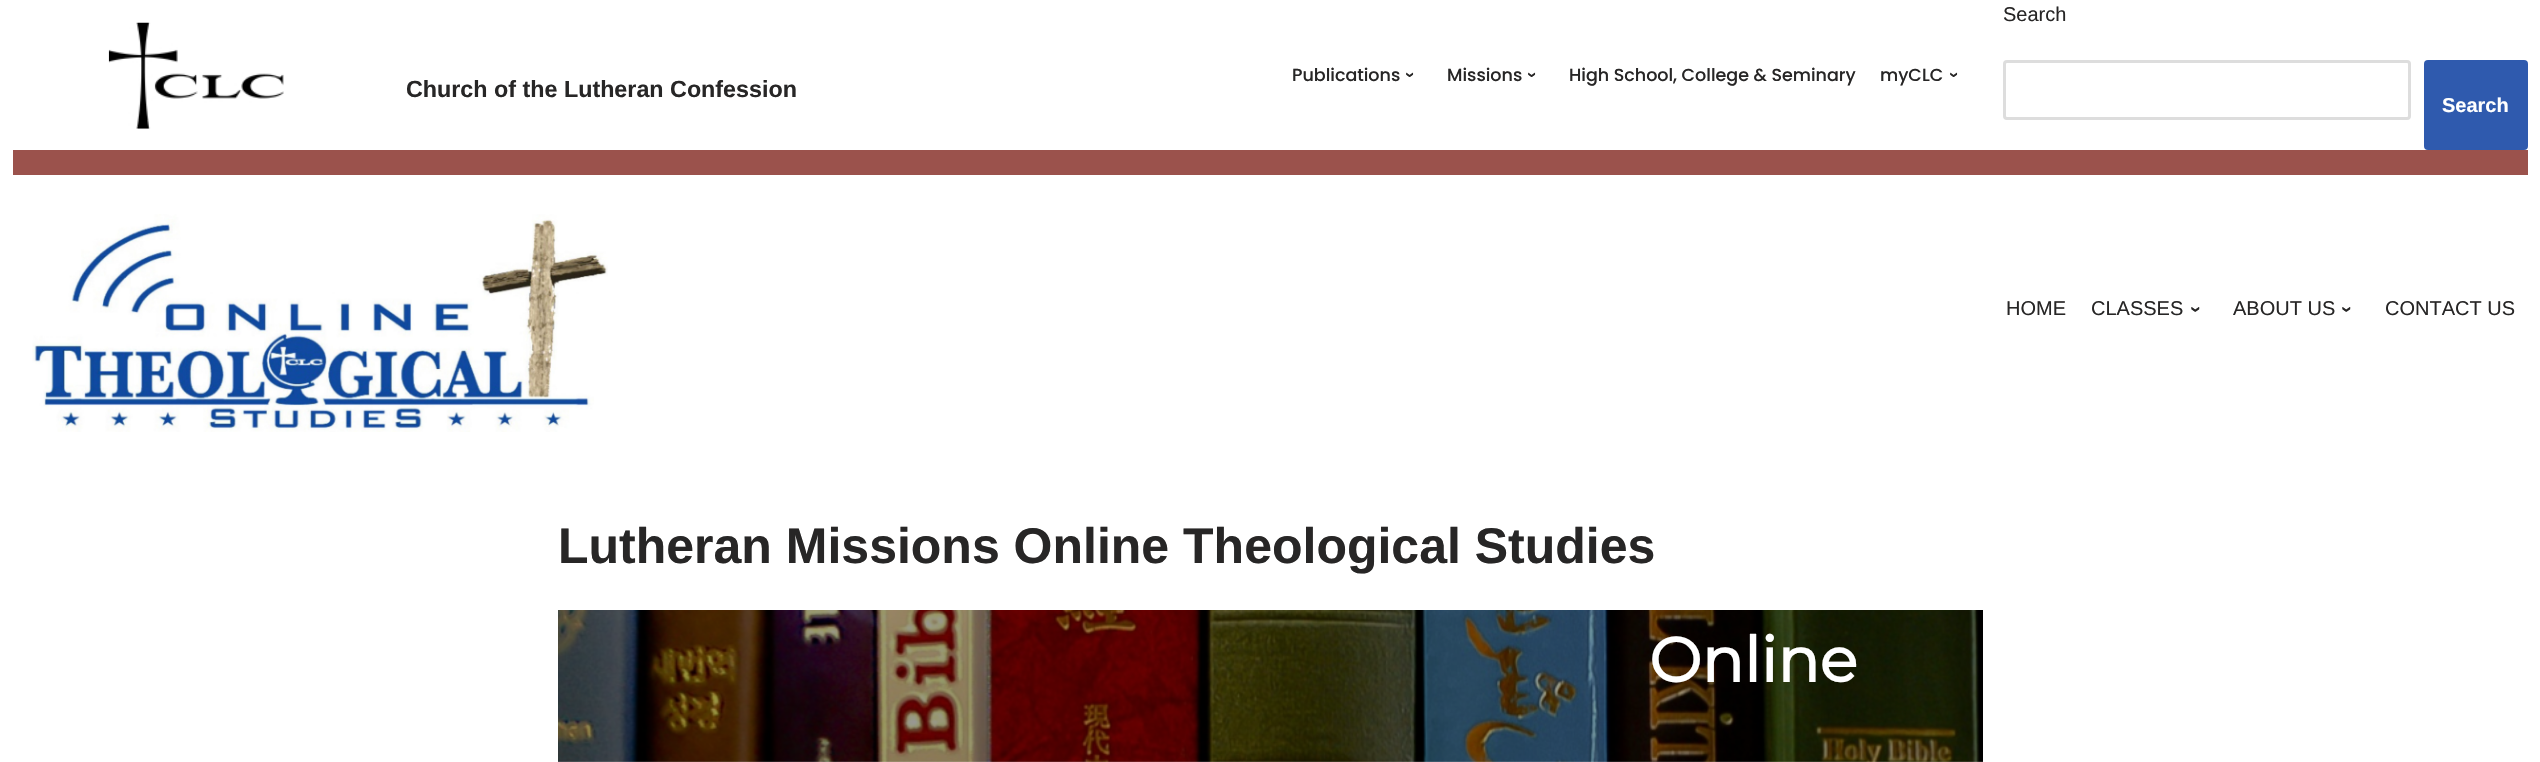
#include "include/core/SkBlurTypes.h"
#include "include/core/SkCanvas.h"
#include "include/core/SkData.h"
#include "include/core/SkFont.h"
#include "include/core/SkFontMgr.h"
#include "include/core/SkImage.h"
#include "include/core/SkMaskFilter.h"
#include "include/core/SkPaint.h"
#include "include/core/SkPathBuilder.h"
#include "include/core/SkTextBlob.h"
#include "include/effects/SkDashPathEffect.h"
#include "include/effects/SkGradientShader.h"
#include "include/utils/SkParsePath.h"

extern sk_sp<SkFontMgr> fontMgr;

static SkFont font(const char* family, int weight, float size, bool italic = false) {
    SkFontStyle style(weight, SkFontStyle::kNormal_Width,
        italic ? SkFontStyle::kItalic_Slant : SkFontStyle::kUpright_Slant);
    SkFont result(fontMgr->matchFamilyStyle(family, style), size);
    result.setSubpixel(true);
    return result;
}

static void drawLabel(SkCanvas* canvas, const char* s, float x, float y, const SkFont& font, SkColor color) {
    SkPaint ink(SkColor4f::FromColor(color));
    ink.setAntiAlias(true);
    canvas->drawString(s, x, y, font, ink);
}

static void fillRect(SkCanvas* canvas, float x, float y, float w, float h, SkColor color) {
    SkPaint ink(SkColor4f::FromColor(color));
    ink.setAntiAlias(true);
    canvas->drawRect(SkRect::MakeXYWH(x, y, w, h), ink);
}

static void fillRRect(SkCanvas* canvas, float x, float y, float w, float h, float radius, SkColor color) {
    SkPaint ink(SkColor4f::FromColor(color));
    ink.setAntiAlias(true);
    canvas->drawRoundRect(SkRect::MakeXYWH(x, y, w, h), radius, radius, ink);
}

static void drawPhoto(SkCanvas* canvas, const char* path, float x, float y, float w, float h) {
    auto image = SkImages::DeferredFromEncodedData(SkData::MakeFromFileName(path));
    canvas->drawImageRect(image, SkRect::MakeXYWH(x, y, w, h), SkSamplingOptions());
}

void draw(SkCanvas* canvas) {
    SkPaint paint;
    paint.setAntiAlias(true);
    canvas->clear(0xFFFFFFFF);
    drawPhoto(canvas, "assets/img1.png", 108, 22, 176, 107);
    SkFont font1 = font("Poppins", 500, 17.5f);
    drawLabel(canvas, "Publications", 1292, 81, font1, 0xFF272626);
    SkFont font2 = font("Liberation Sans", 700, 17.5f);
    canvas->save();
    canvas->rotate(90, 1405, 72);
    drawLabel(canvas, "›", 1405, 72, font2, 0xFF272626);
    canvas->restore();
    drawLabel(canvas, "Missions", 1447, 81, font1, 0xFF272626);
    canvas->save();
    canvas->rotate(90, 1527, 72);
    drawLabel(canvas, "›", 1527, 72, font2, 0xFF272626);
    canvas->restore();
    drawLabel(canvas, "High School, College & Seminary", 1569, 81, font1, 0xFF272626);
    drawLabel(canvas, "myCLC", 1880, 81, font1, 0xFF272626);
    canvas->save();
    canvas->rotate(90, 1949, 72);
    drawLabel(canvas, "›", 1949, 72, font2, 0xFF272626);
    canvas->restore();
    SkFont font3 = font("Liberation Sans", 400, 20);
    drawLabel(canvas, "Search", 2003, 21, font3, 0xFF272626);
    paint.setStroke(true);
    paint.setStrokeWidth(3);
    paint.setColor(0xFFDDDDDD);
    canvas->drawRoundRect(SkRect::MakeXYWH(2004.5f, 61.5f, 405, 57), 2.5f, 2.5f, paint);
    fillRRect(canvas, 2424, 60, 104, 90, 4, 0xFF2F5AAE);
    SkFont font4 = font("Liberation Sans", 700, 20);
    drawLabel(canvas, "Search", 2442, 112, font4, 0xFFFFFFFF);
    SkFont font5 = font("Liberation Sans", 700, 23.3f);
    drawLabel(canvas, "Church of the Lutheran Confession", 406, 97, font5, 0xFF272626);
    fillRect(canvas, 13, 150, 2515, 25, 0xFF9B524C);
    drawPhoto(canvas, "assets/img2.png", 32, 214, 576, 218);
    drawLabel(canvas, "HOME", 2006, 315, font3, 0xFF272626);
    drawLabel(canvas, "CLASSES", 2091, 315, font3, 0xFF272626);
    canvas->save();
    canvas->rotate(90, 2190, 306);
    drawLabel(canvas, "›", 2190, 306, font4, 0xFF272626);
    canvas->restore();
    drawLabel(canvas, "ABOUT US", 2233, 315, font3, 0xFF272626);
    canvas->save();
    canvas->rotate(90, 2341, 306);
    drawLabel(canvas, "›", 2341, 306, font4, 0xFF272626);
    canvas->restore();
    drawLabel(canvas, "CONTACT US", 2385, 315, font3, 0xFF272626);
    SkFont font6 = font("Liberation Sans", 700, 50);
    drawLabel(canvas, "Lutheran Missions Online Theological Studies", 558, 563, font6, 0xFF272626);
    drawPhoto(canvas, "assets/img3.png", 558, 610, 1425, 152);
    SkFont font7 = font("Montserrat", 700, 62.5f);
    drawLabel(canvas, "Online", 1649, 682, font7, 0xFFFFFFFF);
}
